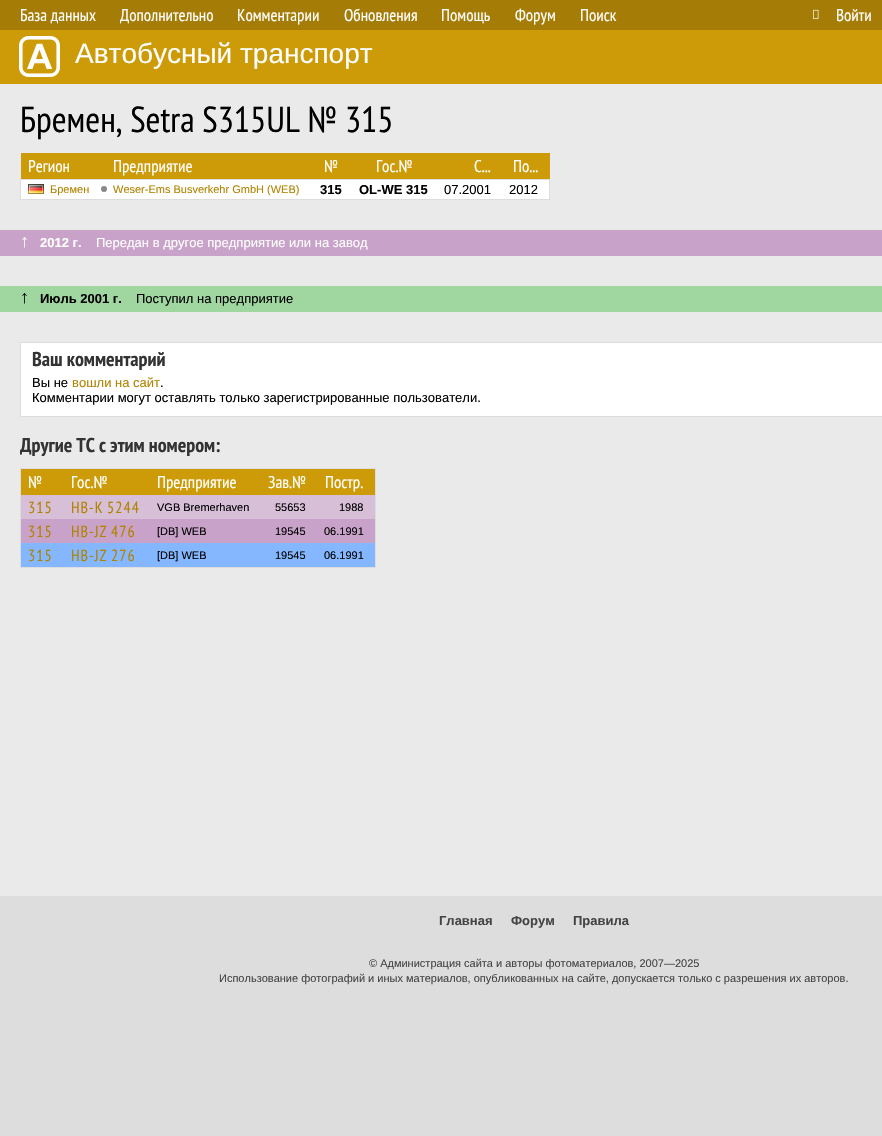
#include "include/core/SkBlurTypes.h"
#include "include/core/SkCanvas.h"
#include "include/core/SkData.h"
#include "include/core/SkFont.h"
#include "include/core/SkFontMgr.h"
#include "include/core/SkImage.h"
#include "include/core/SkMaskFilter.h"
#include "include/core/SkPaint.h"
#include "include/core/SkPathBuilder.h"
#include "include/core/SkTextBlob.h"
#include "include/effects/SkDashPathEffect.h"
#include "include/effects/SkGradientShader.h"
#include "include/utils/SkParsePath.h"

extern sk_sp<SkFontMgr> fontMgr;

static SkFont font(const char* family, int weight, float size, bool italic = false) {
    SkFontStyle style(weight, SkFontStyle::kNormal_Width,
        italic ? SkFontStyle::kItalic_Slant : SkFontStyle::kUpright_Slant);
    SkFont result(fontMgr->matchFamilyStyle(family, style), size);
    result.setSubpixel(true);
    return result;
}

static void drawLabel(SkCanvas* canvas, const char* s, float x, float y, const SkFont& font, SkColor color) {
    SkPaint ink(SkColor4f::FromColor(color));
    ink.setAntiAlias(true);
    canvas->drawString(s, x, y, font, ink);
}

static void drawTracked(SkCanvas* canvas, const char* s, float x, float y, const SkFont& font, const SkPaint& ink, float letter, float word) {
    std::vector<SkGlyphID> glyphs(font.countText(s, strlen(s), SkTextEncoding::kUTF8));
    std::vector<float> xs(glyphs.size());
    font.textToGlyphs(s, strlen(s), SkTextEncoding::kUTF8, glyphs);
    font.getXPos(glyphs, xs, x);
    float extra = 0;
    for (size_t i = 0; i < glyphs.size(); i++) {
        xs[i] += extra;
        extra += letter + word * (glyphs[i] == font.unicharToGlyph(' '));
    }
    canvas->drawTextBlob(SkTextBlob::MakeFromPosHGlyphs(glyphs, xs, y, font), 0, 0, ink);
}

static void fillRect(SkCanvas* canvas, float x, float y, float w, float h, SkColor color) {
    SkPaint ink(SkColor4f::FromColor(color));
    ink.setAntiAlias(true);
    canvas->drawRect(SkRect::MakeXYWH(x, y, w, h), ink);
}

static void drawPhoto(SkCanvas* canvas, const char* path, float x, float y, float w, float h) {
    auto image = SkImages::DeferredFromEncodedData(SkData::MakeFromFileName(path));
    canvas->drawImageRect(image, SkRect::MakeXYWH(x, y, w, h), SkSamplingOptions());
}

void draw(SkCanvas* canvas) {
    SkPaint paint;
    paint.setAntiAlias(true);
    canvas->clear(0xFFDDDDDD);
    fillRect(canvas, 0, 0, 882, 30, 0xFFA47C06);
    SkFont font1 = font("PT Sans Narrow", 400, 17);
    drawLabel(canvas, "База данных", 20, 21, font1, 0xFFFFFFFF);
    drawLabel(canvas, "Дополнительно", 120, 21, font1, 0xFFFFFFFF);
    drawLabel(canvas, "Комментарии", 237, 21, font1, 0xFFFFFFFF);
    drawLabel(canvas, "Обновления", 344, 21, font1, 0xFFFFFFFF);
    drawLabel(canvas, "Помощь", 441, 21, font1, 0xFFFFFFFF);
    drawLabel(canvas, "Форум", 515, 21, font1, 0xFFFFFFFF);
    drawLabel(canvas, "Поиск", 580, 21, font1, 0xFFFFFFFF);
    drawPhoto(canvas, "assets/img1.png", 813, 9, 6, 10);
    drawLabel(canvas, "Войти", 836, 21, font1, 0xFFFFFFFF);
    fillRect(canvas, 0, 30, 882, 54, 0xFFCD9B08);
    drawPhoto(canvas, "assets/img2.png", 19, 36, 41, 41);
    SkFont font2 = font("Liberation Sans", 400, 28);
    drawLabel(canvas, "Автобусный транспорт", 75, 63, font2, 0xFFFFFFFF);
    fillRect(canvas, 0, 84, 882, 812, 0xFFEAEAEA);
    SkFont font3 = font("PT Sans Narrow", 400, 36);
    drawLabel(canvas, "Бремен, Setra S315UL № 315", 20, 132, font3, 0xFF000000);
    fillRect(canvas, 21, 153, 529, 26, 0xFFCD9B08);
    drawLabel(canvas, "Регион", 28, 172, font1, 0xFFFFFFFF);
    drawLabel(canvas, "Предприятие", 113, 172, font1, 0xFFFFFFFF);
    drawLabel(canvas, "№", 324, 172, font1, 0xFFFFFFFF);
    drawLabel(canvas, "Гос.№", 376, 172, font1, 0xFFFFFFFF);
    drawLabel(canvas, "С...", 474, 172, font1, 0xFFFFFFFF);
    drawLabel(canvas, "По...", 513, 172, font1, 0xFFFFFFFF);
    fillRect(canvas, 21, 180, 528, 19, 0xFFFFFFFF);
    fillRect(canvas, 20, 179, 530, 1, 0xFFDDDDDD);
    fillRect(canvas, 549, 179, 1, 21, 0xFFDDDDDD);
    fillRect(canvas, 20, 199, 530, 1, 0xFFDDDDDD);
    fillRect(canvas, 20, 179, 1, 21, 0xFFDDDDDD);
    drawPhoto(canvas, "assets/img3.png", 28, 184, 16, 10);
    SkFont font4 = font("Liberation Sans", 400, 11);
    drawLabel(canvas, "Бремен", 50, 193, font4, 0xFFB08300);
    paint.setColor(0xFF888888);
    canvas->drawCircle(104, 189, 3, paint);
    drawLabel(canvas, "Weser-Ems Busverkehr GmbH (WEB)", 113, 193, font4, 0xFFB08300);
    SkFont font5 = font("Liberation Sans", 700, 13);
    drawLabel(canvas, "315", 320, 194, font5, 0xFF000000);
    drawLabel(canvas, "OL-WE 315", 359, 194, font5, 0xFF000000);
    SkFont font6 = font("Liberation Sans", 400, 13);
    drawLabel(canvas, "07.2001", 444, 194, font6, 0xFF000000);
    drawLabel(canvas, "2012", 509, 194, font6, 0xFF000000);
    fillRect(canvas, 0, 230, 882, 26, 0xFFC8A2C8);
    SkFont font7 = font("Liberation Sans", 400, 18);
    drawLabel(canvas, "↑", 20, 247, font7, 0xFFFFFFFF);
    drawLabel(canvas, "2012 г.", 40, 247, font5, 0xFFFFFFFF);
    drawLabel(canvas, "Передан в другое предприятие или на завод", 96, 247, font6, 0xFFFFFFFF);
    fillRect(canvas, 0, 286, 882, 26, 0xFFA0D6A0);
    drawLabel(canvas, "↑", 20, 303, font7, 0xFF000000);
    drawLabel(canvas, "Июль 2001 г.", 40, 303, font5, 0xFF000000);
    drawLabel(canvas, "Поступил на предприятие", 136, 303, font6, 0xFF000000);
    paint.setColor(0xFFFFFFFF);
    canvas->drawRect(SkRect::MakeXYWH(20.5f, 342.5f, 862, 74), paint);
    paint.setStroke(true);
    paint.setStrokeWidth(1);
    paint.setColor(0xFFDDDDDD);
    canvas->drawRect(SkRect::MakeXYWH(20.5f, 342.5f, 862, 74), paint);
    SkFont font8 = font("PT Sans Narrow", 700, 20);
    drawLabel(canvas, "Ваш комментарий", 32, 366, font8, 0xFF333333);
    drawLabel(canvas, "Вы не", 32, 387, font6, 0xFF000000);
    drawLabel(canvas, "вошли на сайт", 72, 387, font6, 0xFFB08300);
    drawLabel(canvas, ".", 160, 387, font6, 0xFF000000);
    drawLabel(canvas, "Комментарии могут оставлять только зарегистрированные пользователи.", 32, 402, font6, 0xFF000000);
    drawLabel(canvas, "Другие ТС с этим номером:", 20, 452, font8, 0xFF333333);
    canvas->drawRect(SkRect::MakeXYWH(20.5f, 468.5f, 355, 99), paint);
    fillRect(canvas, 21, 469, 354, 26, 0xFFCD9B08);
    drawLabel(canvas, "№", 28, 488, font1, 0xFFFFFFFF);
    drawLabel(canvas, "Гос.№", 71, 488, font1, 0xFFFFFFFF);
    drawLabel(canvas, "Предприятие", 157, 488, font1, 0xFFFFFFFF);
    drawLabel(canvas, "Зав.№", 268, 488, font1, 0xFFFFFFFF);
    drawLabel(canvas, "Постр.", 325, 488, font1, 0xFFFFFFFF);
    fillRect(canvas, 21, 495, 354, 24, 0xFFD8BFD8);
    SkFont font9 = font("PT Sans Narrow", 400, 16);
    paint.setStroke(false);
    paint.setColor(0xFFB08300);
    drawTracked(canvas, "315", 28, 513, font9, paint, 1, 0);
    drawTracked(canvas, "HB-K 5244", 71, 513, font9, paint, 1, -1);
    drawLabel(canvas, "VGB Bremerhaven", 157, 511, font4, 0xFF000000);
    drawLabel(canvas, "55653", 275, 511, font4, 0xFF000000);
    drawLabel(canvas, "1988", 339, 511, font4, 0xFF000000);
    fillRect(canvas, 21, 519, 354, 24, 0xFFC8A2C8);
    drawTracked(canvas, "315", 28, 537, font9, paint, 1, 0);
    drawTracked(canvas, "HB-JZ 476", 71, 537, font9, paint, 1, -1);
    drawLabel(canvas, "[DB] WEB", 157, 535, font4, 0xFF000000);
    drawLabel(canvas, "19545", 275, 535, font4, 0xFF000000);
    drawLabel(canvas, "06.1991", 324, 535, font4, 0xFF000000);
    fillRect(canvas, 21, 543, 354, 24, 0xFF84B7FF);
    drawTracked(canvas, "315", 28, 561, font9, paint, 1, 0);
    drawTracked(canvas, "HB-JZ 276", 71, 561, font9, paint, 1, -1);
    drawLabel(canvas, "[DB] WEB", 157, 559, font4, 0xFF000000);
    drawLabel(canvas, "19545", 275, 559, font4, 0xFF000000);
    drawLabel(canvas, "06.1991", 324, 559, font4, 0xFF000000);
    drawLabel(canvas, "Главная", 439, 925, font5, 0xFF444444);
    drawLabel(canvas, "Форум", 511, 925, font5, 0xFF444444);
    drawLabel(canvas, "Правила", 573, 925, font5, 0xFF444444);
    drawLabel(canvas, "© Администрация сайта и авторы фотоматериалов, 2007—2025", 369, 967, font4, 0xFF444444);
    drawLabel(canvas, "Использование фотографий и иных материалов, опубликованных на сайте, допускается только с разрешения их авторов.", 219, 982, font4, 0xFF444444);
}
